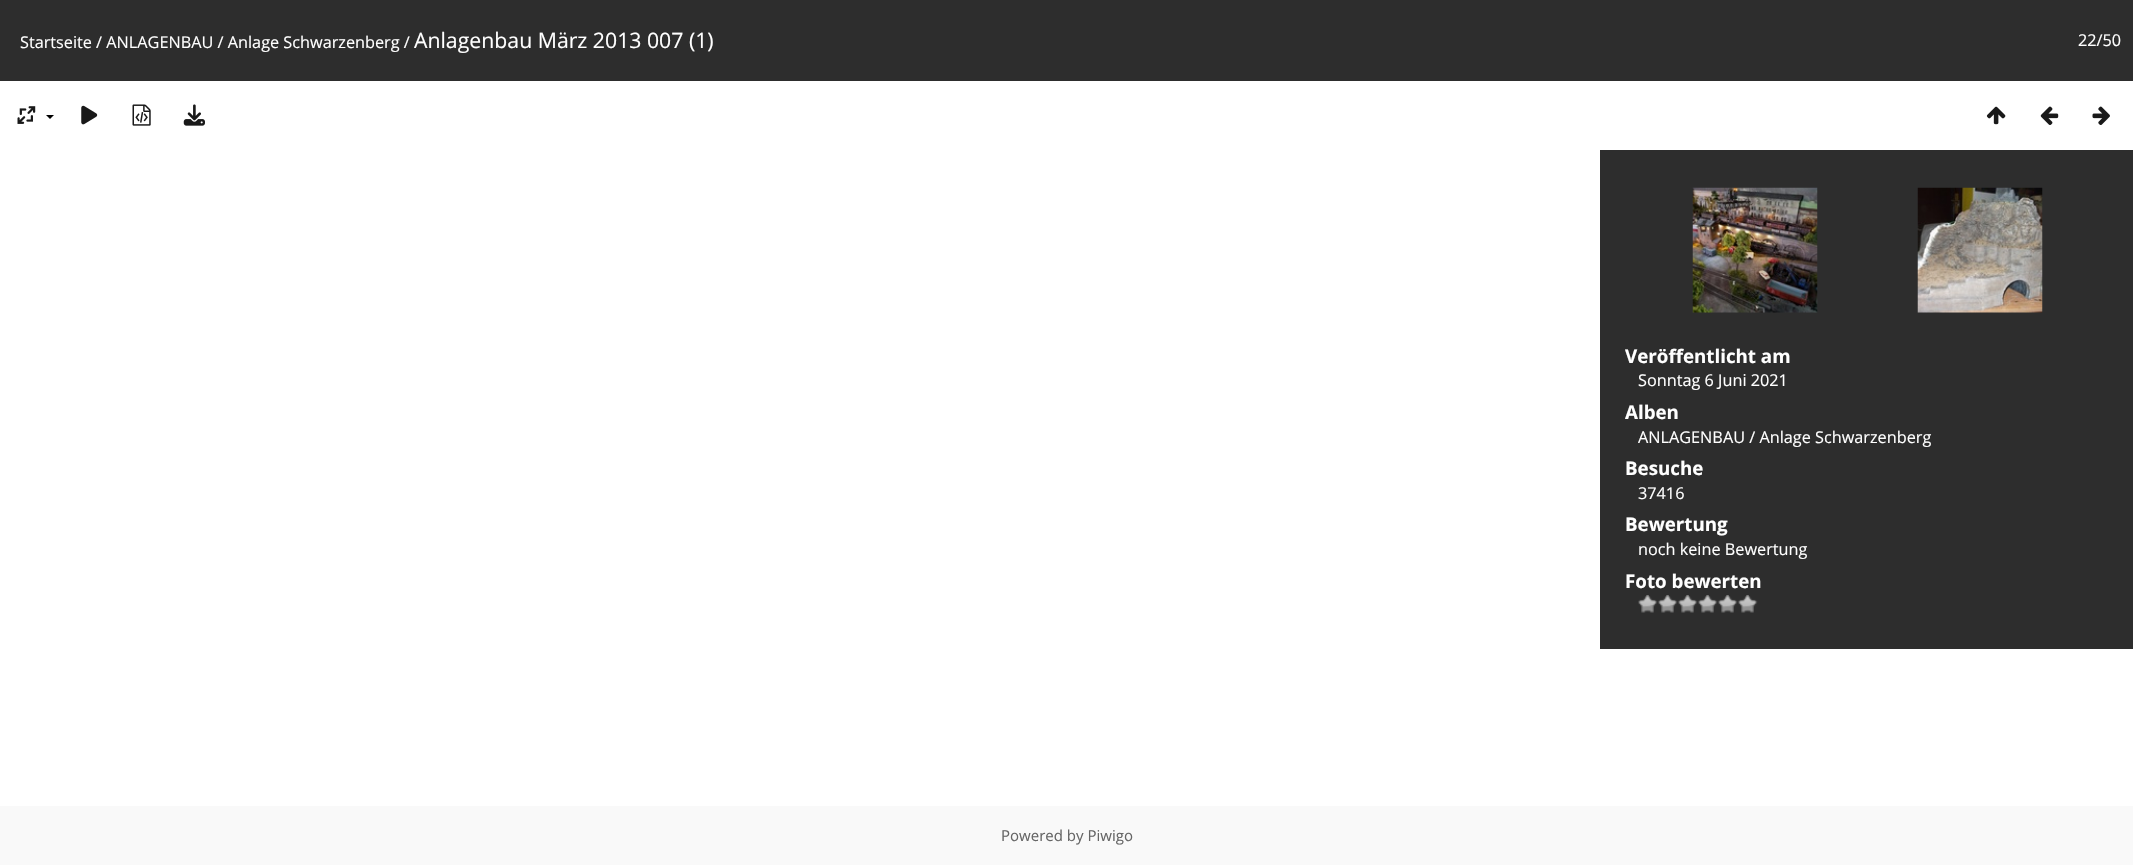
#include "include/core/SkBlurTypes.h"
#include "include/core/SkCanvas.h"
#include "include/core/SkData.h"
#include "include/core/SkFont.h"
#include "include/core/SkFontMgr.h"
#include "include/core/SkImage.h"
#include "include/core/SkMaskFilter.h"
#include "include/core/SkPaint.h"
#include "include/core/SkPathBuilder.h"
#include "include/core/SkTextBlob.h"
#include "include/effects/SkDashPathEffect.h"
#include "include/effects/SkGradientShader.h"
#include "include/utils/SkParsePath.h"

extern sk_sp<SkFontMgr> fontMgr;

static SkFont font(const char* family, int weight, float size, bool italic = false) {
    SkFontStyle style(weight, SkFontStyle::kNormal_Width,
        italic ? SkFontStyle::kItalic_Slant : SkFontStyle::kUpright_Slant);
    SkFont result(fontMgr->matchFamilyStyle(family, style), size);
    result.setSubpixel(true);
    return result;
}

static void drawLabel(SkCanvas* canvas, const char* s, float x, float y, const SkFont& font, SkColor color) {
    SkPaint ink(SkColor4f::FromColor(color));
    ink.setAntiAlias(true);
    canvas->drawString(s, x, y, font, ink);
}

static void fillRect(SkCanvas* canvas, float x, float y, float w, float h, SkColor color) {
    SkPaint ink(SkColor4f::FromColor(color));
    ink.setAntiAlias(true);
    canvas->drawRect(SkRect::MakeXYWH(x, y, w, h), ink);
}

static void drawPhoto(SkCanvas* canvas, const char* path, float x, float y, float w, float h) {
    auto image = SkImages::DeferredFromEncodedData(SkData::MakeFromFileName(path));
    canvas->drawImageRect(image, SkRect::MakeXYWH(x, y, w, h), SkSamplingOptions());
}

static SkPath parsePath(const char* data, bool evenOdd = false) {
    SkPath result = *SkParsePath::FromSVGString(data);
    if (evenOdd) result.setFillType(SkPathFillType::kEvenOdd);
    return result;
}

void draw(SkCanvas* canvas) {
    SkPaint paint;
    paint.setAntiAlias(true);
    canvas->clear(0xFFFFFFFF);
    fillRect(canvas, 0, 0, 2133, 81, 0xFF2D2D2D);
    SkFont font1 = font("Open Sans", 400, 16.25f);
    drawLabel(canvas, "Startseite / ANLAGENBAU / Anlage Schwarzenberg /", 20, 48, font1, 0xFFFFFFFF);
    SkFont font2 = font("Open Sans", 400, 21.25f);
    drawLabel(canvas, "Anlagenbau März 2013 007 (1)", 414, 48, font2, 0xFFFFFFFF);
    drawLabel(canvas, "22/50", 2078, 46, font1, 0xFFFFFFFF);
    drawPhoto(canvas, "assets/img1.png", 17, 106, 19, 18);
    paint.setColor(0xFF000000);
    canvas->drawPath(parsePath("M46 115H54L50 119Z"), paint);
    drawPhoto(canvas, "assets/img2.png", 81, 105, 17, 20);
    drawPhoto(canvas, "assets/img3.png", 132, 104, 19, 22);
    drawPhoto(canvas, "assets/img4.png", 183, 104, 22, 22);
    drawPhoto(canvas, "assets/img5.png", 1986, 106, 20, 19);
    drawPhoto(canvas, "assets/img6.png", 2040, 106, 19, 19);
    drawPhoto(canvas, "assets/img7.png", 2092, 106, 18, 19);
    fillRect(canvas, 1600, 150, 533, 499, 0xFF2D2D2D);
    drawPhoto(canvas, "assets/img8.png", 1692, 187, 126, 126);
    drawPhoto(canvas, "assets/img9.png", 1917, 187, 126, 126);
    SkFont font3 = font("Open Sans", 700, 18.75f);
    drawLabel(canvas, "Veröffentlicht am", 1625, 363, font3, 0xFFFFFFFF);
    drawLabel(canvas, "Sonntag 6 Juni 2021", 1638, 386, font1, 0xFFFFFFFF);
    drawLabel(canvas, "Alben", 1625, 419, font3, 0xFFFFFFFF);
    drawLabel(canvas, "ANLAGENBAU / Anlage Schwarzenberg", 1638, 443, font1, 0xFFFFFFFF);
    drawLabel(canvas, "Besuche", 1625, 475, font3, 0xFFFFFFFF);
    drawLabel(canvas, "37416", 1638, 499, font1, 0xFFFFFFFF);
    drawLabel(canvas, "Bewertung", 1625, 531, font3, 0xFFFFFFFF);
    drawLabel(canvas, "noch keine Bewertung", 1638, 555, font1, 0xFFFFFFFF);
    drawLabel(canvas, "Foto bewerten", 1625, 588, font3, 0xFFFFFFFF);
    drawPhoto(canvas, "assets/img10.png", 1638, 595, 20, 18);
    drawPhoto(canvas, "assets/img10.png", 1658, 595, 20, 18);
    drawPhoto(canvas, "assets/img10.png", 1678, 595, 20, 18);
    drawPhoto(canvas, "assets/img11.png", 1698, 595, 20, 18);
    drawPhoto(canvas, "assets/img11.png", 1718, 595, 20, 18);
    drawPhoto(canvas, "assets/img11.png", 1738, 595, 20, 18);
    fillRect(canvas, 0, 806, 2133, 59, 0xFFF9F9F9);
    SkFont font4 = font("Open Sans", 400, 15);
    drawLabel(canvas, "Powered by Piwigo", 1001, 841, font4, 0xFF666666);
}
